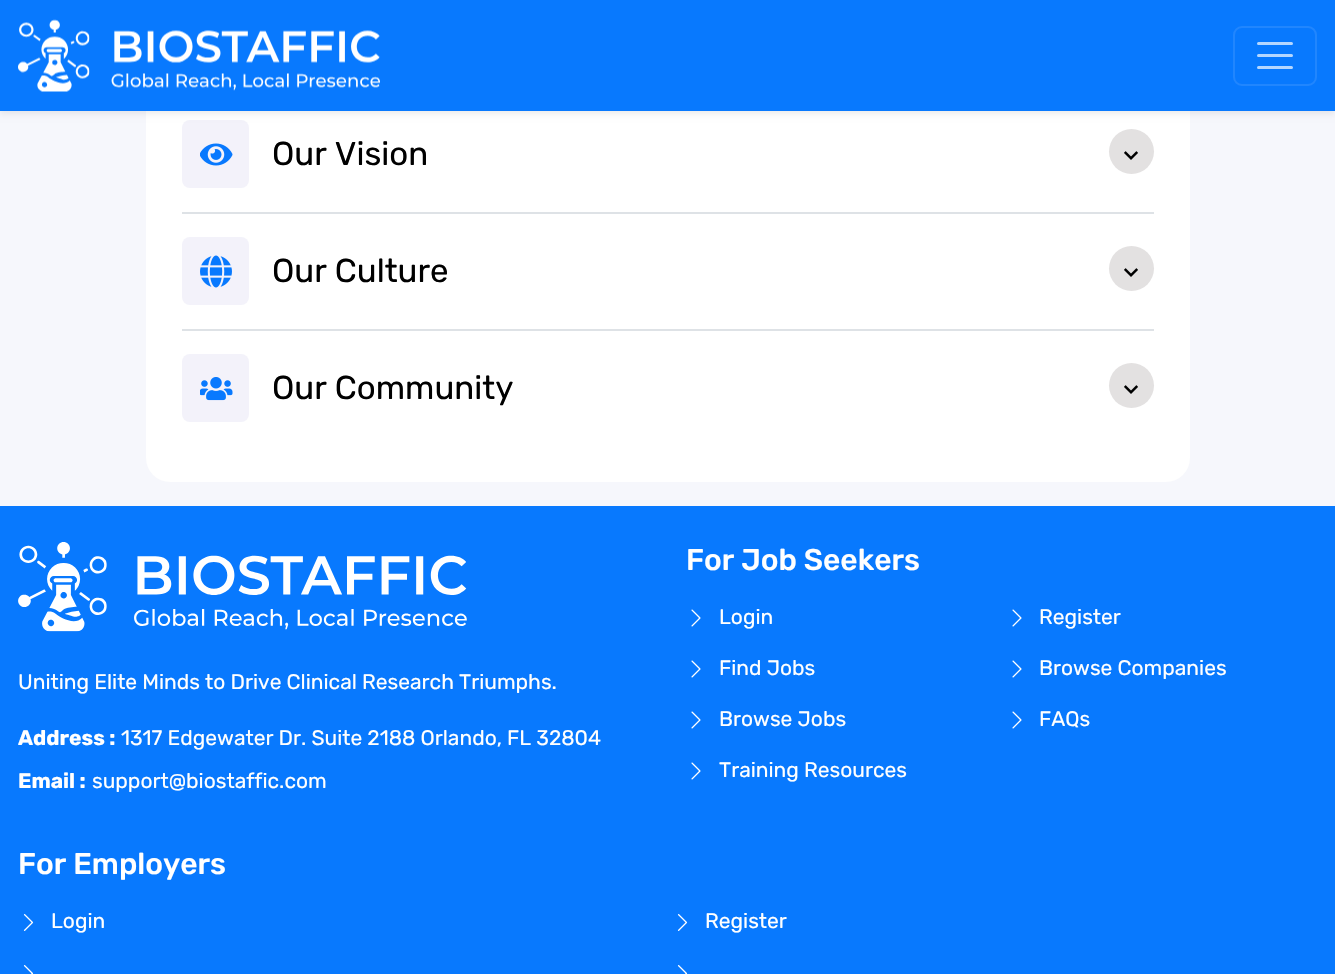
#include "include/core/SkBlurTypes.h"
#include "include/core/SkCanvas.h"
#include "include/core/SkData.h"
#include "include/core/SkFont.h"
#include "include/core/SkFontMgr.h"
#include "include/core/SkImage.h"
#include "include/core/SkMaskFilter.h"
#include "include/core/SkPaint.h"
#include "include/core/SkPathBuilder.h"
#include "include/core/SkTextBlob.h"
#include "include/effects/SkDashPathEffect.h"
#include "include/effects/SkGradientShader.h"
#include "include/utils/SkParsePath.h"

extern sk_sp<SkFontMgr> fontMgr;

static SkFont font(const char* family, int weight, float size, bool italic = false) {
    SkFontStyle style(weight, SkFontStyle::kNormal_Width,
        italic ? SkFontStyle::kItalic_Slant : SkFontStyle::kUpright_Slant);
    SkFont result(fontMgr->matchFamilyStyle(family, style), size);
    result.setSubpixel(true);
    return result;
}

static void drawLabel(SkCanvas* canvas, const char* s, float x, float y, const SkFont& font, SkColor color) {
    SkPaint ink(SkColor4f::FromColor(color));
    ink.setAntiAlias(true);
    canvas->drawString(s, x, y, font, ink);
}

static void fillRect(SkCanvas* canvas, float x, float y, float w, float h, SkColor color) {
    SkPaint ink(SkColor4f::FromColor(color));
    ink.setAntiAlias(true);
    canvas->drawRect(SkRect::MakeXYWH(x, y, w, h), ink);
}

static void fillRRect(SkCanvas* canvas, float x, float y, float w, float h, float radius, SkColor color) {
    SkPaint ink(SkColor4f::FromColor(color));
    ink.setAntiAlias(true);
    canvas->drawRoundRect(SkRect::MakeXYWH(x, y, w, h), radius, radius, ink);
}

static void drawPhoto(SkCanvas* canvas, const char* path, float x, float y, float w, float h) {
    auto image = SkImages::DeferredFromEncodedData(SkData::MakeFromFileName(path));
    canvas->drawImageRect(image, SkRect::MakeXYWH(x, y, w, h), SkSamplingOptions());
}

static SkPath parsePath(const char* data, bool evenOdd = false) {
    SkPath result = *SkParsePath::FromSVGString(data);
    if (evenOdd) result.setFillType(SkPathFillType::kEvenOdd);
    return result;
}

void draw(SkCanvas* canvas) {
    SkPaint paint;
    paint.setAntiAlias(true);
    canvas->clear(0xFFF6F7FC);
    fillRRect(canvas, 146, -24, 1044, 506, 24, 0xFFFFFFFF);
    fillRRect(canvas, 182, 120, 67, 68, 8, 0xFFF3F2FA);
    paint.setColor(0x12000000);
    paint.setMaskFilter(SkMaskFilter::MakeBlur(kNormal_SkBlurStyle, 3));
    canvas->drawRect(SkRect::MakeXYWH(0, 3, 1335, 111), paint);
    paint.setMaskFilter(nullptr);
    fillRect(canvas, 0, 0, 1335, 111, 0xFF0879FE);
    drawPhoto(canvas, "assets/img1.png", 18, 19, 362, 73);
    paint.setStroke(true);
    paint.setStrokeWidth(2);
    paint.setColor(0xFF2186FE);
    canvas->drawRoundRect(SkRect::MakeXYWH(1234, 27, 82, 58), 8, 8, paint);
    paint.setStrokeWidth(3);
    paint.setStrokeCap(SkPaint::kRound_Cap);
    paint.setColor(0xFFB5D7FF);
    canvas->drawPath(parsePath("M1258.5 43.5H1291.5M1258.5 55.5H1291.5M1258.5 67.5H1291.5"), paint);
    fillRect(canvas, 182, 212, 972, 2, 0xFFDEE2E6);
    drawPhoto(canvas, "assets/img2.png", 200, 143, 33, 23);
    SkFont font1 = font("Rubik", 400, 33);
    drawLabel(canvas, "Our Vision", 272, 165, font1, 0xFF000000);
    paint.setStroke(false);
    paint.setColor(0xFFE3E1E1);
    canvas->drawCircle(1131.5f, 151.5f, 22.5f, paint);
    drawPhoto(canvas, "assets/img3.png", 1124, 151, 14, 9);
    fillRect(canvas, 182, 329, 972, 2, 0xFFDEE2E6);
    fillRRect(canvas, 182, 237, 67, 68, 8, 0xFFF3F2FA);
    drawPhoto(canvas, "assets/img4.png", 200, 255, 32, 33);
    drawLabel(canvas, "Our Culture", 272, 282, font1, 0xFF000000);
    canvas->drawCircle(1131.5f, 268.5f, 22.5f, paint);
    drawPhoto(canvas, "assets/img3.png", 1124, 268, 14, 9);
    fillRRect(canvas, 182, 354, 67, 68, 8, 0xFFF3F2FA);
    drawPhoto(canvas, "assets/img5.png", 200, 377, 33, 24);
    drawLabel(canvas, "Our Community", 272, 399, font1, 0xFF000000);
    canvas->drawCircle(1131.5f, 385.5f, 22.5f, paint);
    drawPhoto(canvas, "assets/img3.png", 1124, 385, 14, 9);
    fillRect(canvas, 0, 506, 1335, 468, 0xFF0879FE);
    drawPhoto(canvas, "assets/img6.png", 18, 542, 449, 90);
    SkFont font2 = font("Rubik", 400, 21);
    drawLabel(canvas, "Uniting Elite Minds to Drive Clinical Research Triumphs.", 18, 689, font2, 0xFFFFFFFF);
    SkFont font3 = font("Rubik", 700, 21);
    drawLabel(canvas, "Address :", 18, 745, font3, 0xFFFFFFFF);
    drawLabel(canvas, "1317 Edgewater Dr. Suite 2188 Orlando, FL 32804", 121, 745, font2, 0xFFFFFFFF);
    drawLabel(canvas, "Email :", 18, 788, font3, 0xFFFFFFFF);
    drawLabel(canvas, "support@biostaffic.com", 92, 788, font2, 0xFFFFFFFF);
    SkFont font4 = font("Rubik", 500, 30);
    drawLabel(canvas, "For Job Seekers", 686, 570, font4, 0xFFFFFFFF);
    drawPhoto(canvas, "assets/img7.png", 691, 609, 10, 18);
    drawLabel(canvas, "Login", 719, 624, font2, 0xFFFFFFFF);
    drawPhoto(canvas, "assets/img7.png", 1012, 609, 10, 18);
    drawLabel(canvas, "Register", 1039, 624, font2, 0xFFFFFFFF);
    drawPhoto(canvas, "assets/img7.png", 691, 660, 10, 18);
    drawLabel(canvas, "Find Jobs", 719, 675, font2, 0xFFFFFFFF);
    drawPhoto(canvas, "assets/img7.png", 1012, 660, 10, 18);
    drawLabel(canvas, "Browse Companies", 1039, 675, font2, 0xFFFFFFFF);
    drawPhoto(canvas, "assets/img7.png", 691, 711, 10, 18);
    drawLabel(canvas, "Browse Jobs", 719, 726, font2, 0xFFFFFFFF);
    drawPhoto(canvas, "assets/img7.png", 1012, 711, 10, 18);
    drawLabel(canvas, "FAQs", 1039, 726, font2, 0xFFFFFFFF);
    drawPhoto(canvas, "assets/img7.png", 691, 762, 10, 18);
    drawLabel(canvas, "Training Resources", 719, 777, font2, 0xFFFFFFFF);
    drawLabel(canvas, "For Employers", 18, 874, font4, 0xFFFFFFFF);
    drawPhoto(canvas, "assets/img8.png", 23, 914, 11, 17);
    drawLabel(canvas, "Login", 51, 928, font2, 0xFFFFFFFF);
    drawPhoto(canvas, "assets/img8.png", 677, 914, 11, 17);
    drawLabel(canvas, "Register", 705, 928, font2, 0xFFFFFFFF);
    drawPhoto(canvas, "assets/img9.png", 23, 965, 11, 9);
    drawPhoto(canvas, "assets/img9.png", 677, 965, 11, 9);
}
